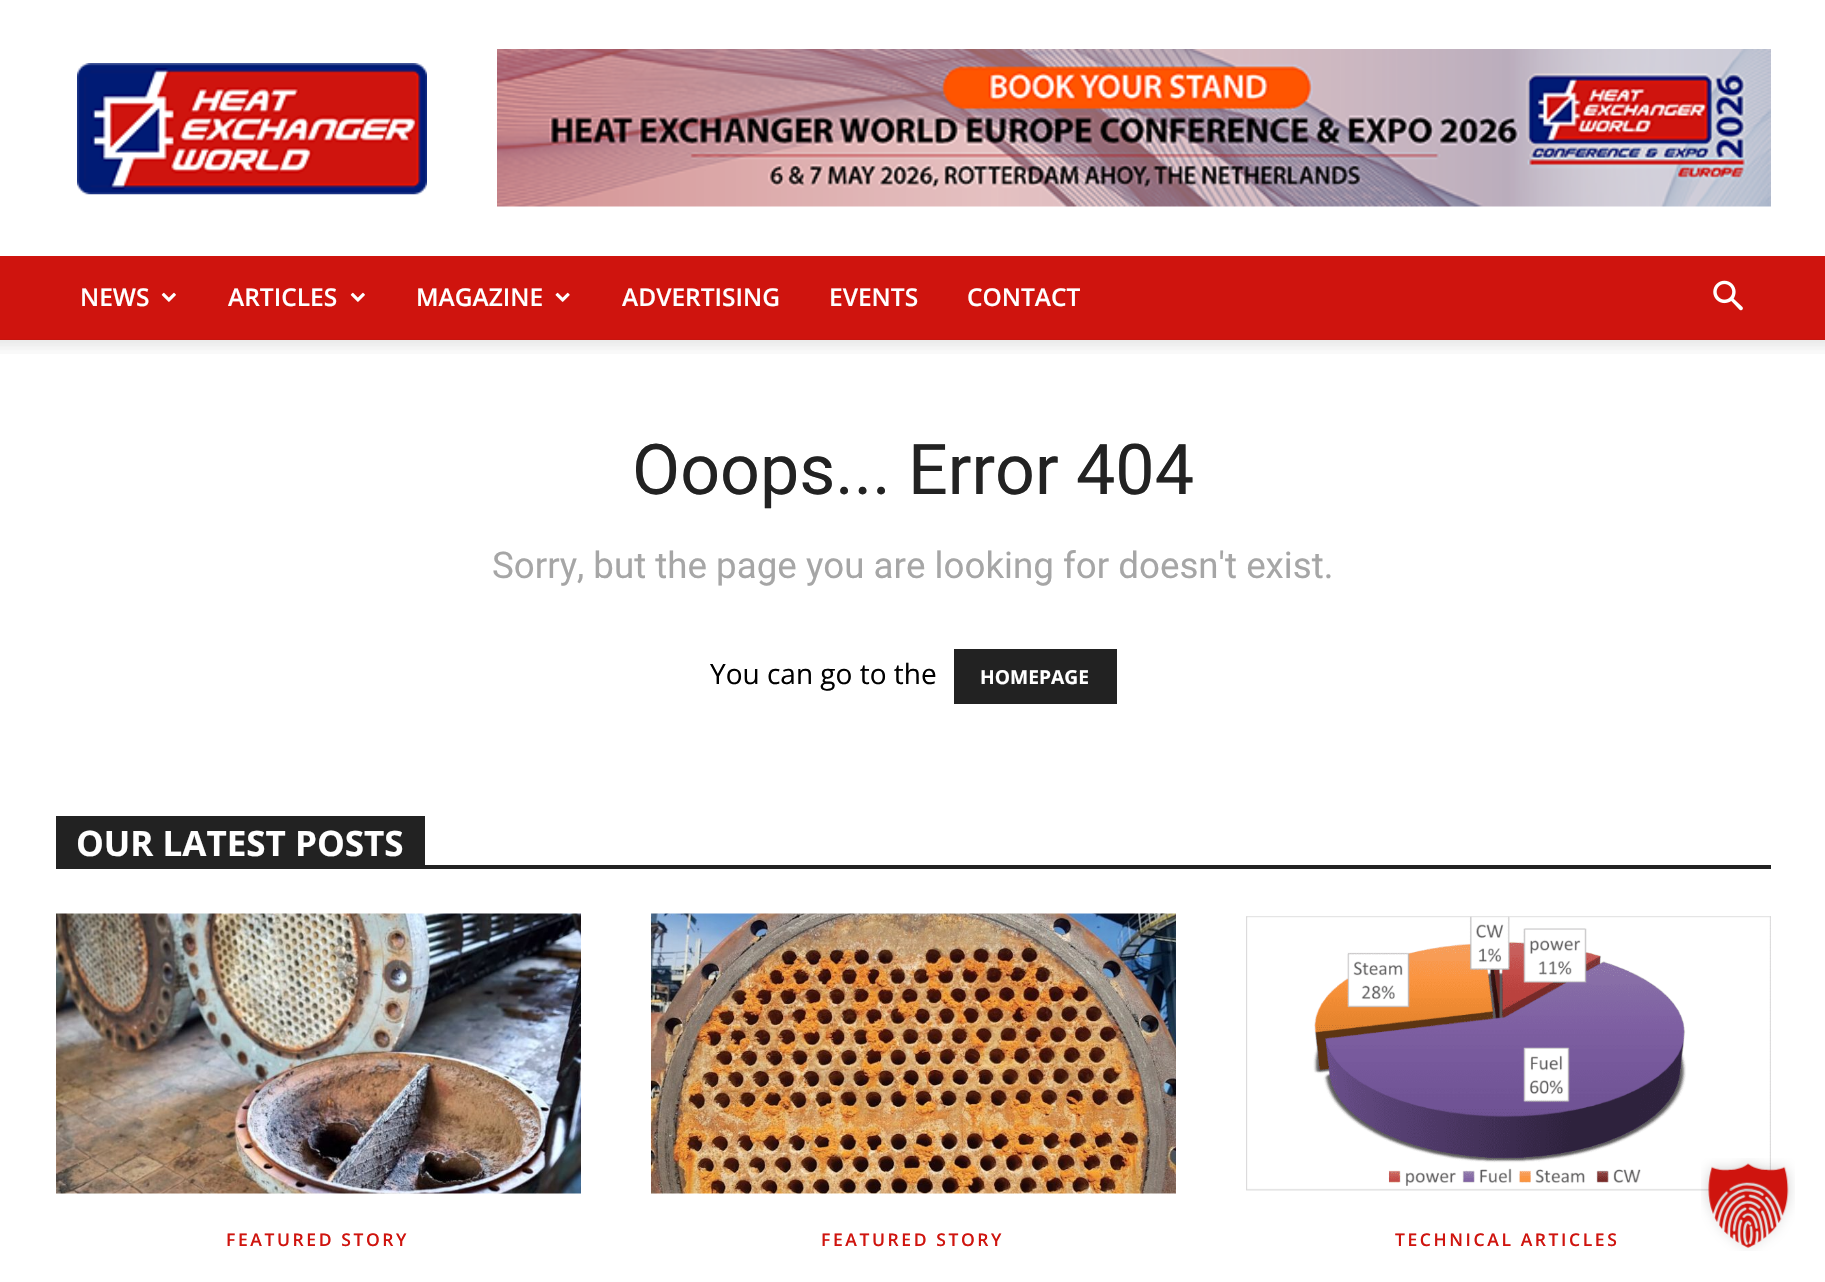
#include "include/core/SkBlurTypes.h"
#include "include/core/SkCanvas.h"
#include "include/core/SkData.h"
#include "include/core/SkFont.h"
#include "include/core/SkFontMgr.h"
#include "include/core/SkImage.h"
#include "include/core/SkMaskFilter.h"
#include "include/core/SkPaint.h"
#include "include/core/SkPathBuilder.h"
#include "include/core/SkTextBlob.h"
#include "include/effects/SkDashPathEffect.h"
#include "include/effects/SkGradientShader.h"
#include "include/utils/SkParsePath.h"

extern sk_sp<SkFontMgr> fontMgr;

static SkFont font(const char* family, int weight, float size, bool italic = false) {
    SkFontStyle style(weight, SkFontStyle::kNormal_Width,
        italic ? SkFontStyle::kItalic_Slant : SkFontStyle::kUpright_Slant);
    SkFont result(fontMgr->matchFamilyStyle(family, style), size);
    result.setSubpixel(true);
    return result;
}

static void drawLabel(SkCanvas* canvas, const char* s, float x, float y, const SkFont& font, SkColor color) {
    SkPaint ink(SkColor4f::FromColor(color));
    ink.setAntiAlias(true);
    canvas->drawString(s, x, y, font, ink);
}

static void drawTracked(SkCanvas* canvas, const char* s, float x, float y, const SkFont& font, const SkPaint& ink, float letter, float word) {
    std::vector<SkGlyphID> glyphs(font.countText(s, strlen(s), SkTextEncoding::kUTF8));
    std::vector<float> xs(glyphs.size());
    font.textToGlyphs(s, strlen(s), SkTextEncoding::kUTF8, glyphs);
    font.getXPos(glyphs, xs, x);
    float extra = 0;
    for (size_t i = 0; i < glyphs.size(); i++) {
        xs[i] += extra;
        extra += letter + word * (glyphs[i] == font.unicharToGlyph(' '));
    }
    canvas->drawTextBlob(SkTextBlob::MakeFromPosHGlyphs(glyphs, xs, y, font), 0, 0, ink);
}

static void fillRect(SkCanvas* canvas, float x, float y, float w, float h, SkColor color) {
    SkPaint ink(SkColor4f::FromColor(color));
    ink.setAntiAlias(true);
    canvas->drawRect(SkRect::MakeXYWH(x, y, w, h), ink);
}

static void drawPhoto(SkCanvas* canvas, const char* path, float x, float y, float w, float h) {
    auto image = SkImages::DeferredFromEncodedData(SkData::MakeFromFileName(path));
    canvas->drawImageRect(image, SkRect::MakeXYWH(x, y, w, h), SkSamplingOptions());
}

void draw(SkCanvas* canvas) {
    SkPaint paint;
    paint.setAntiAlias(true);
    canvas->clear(0xFFFFFFFF);
    drawPhoto(canvas, "assets/img1.png", 77, 63, 350, 132);
    drawPhoto(canvas, "assets/img2.png", 497, 49, 1274, 158);
    fillRect(canvas, 0, 256, 1825, 84, 0xFFCF140E);
    SkFont font1 = font("Open Sans", 600, 24.5f);
    drawLabel(canvas, "NEWS", 80, 306, font1, 0xFFFFFFFF);
    drawPhoto(canvas, "assets/img3.png", 161, 292, 15, 10);
    drawLabel(canvas, "ARTICLES", 228, 306, font1, 0xFFFFFFFF);
    drawPhoto(canvas, "assets/img3.png", 350, 292, 15, 10);
    drawLabel(canvas, "MAGAZINE", 416, 306, font1, 0xFFFFFFFF);
    drawPhoto(canvas, "assets/img4.png", 555, 292, 15, 10);
    drawLabel(canvas, "ADVERTISING", 622, 306, font1, 0xFFFFFFFF);
    drawLabel(canvas, "EVENTS", 829, 306, font1, 0xFFFFFFFF);
    drawLabel(canvas, "CONTACT", 967, 306, font1, 0xFFFFFFFF);
    drawPhoto(canvas, "assets/img5.png", 1713, 280, 30, 31);
    drawPhoto(canvas, "assets/img6.png", 0, 339, 1825, 15);
    SkFont font2 = font("Roboto", 400, 70);
    drawLabel(canvas, "Ooops... Error 404", 632, 494, font2, 0xFF222222);
    SkFont font3 = font("Roboto", 400, 36.75f);
    drawLabel(canvas, "Sorry, but the page you are looking for doesn't exist.", 492, 578, font3, 0xFFA6A6A6);
    SkFont font4 = font("Open Sans", 400, 28);
    drawLabel(canvas, "You can go to the", 710, 684, font4, 0xFF000000);
    fillRect(canvas, 954, 649, 163, 55, 0xFF222222);
    SkFont font5 = font("Open Sans", 700, 19.25f);
    drawLabel(canvas, "HOMEPAGE", 980, 684, font5, 0xFFFFFFFF);
    fillRect(canvas, 56, 865, 1715, 4, 0xFF222222);
    fillRect(canvas, 56, 816, 369, 49, 0xFF222222);
    SkFont font6 = font("Open Sans", 700, 35);
    drawLabel(canvas, "OUR LATEST POSTS", 76, 856, font6, 0xFFFFFFFF);
    drawPhoto(canvas, "assets/img7.png", 56, 913, 525, 281);
    SkFont font7 = font("Open Sans", 600, 17.5f);
    paint.setColor(0xFFCF140E);
    drawTracked(canvas, "FEATURED STORY", 226, 1246, font7, paint, 2.6f, 0);
    drawPhoto(canvas, "assets/img8.png", 651, 913, 525, 281);
    drawTracked(canvas, "FEATURED STORY", 821, 1246, font7, paint, 2.6f, 0);
    drawPhoto(canvas, "assets/img9.png", 1246, 916, 525, 275);
    drawTracked(canvas, "TECHNICAL ARTICLES", 1395, 1246, font7, paint, 2.6f, 0);
    drawPhoto(canvas, "assets/img10.png", 1701, 1158, 94, 93);
}
